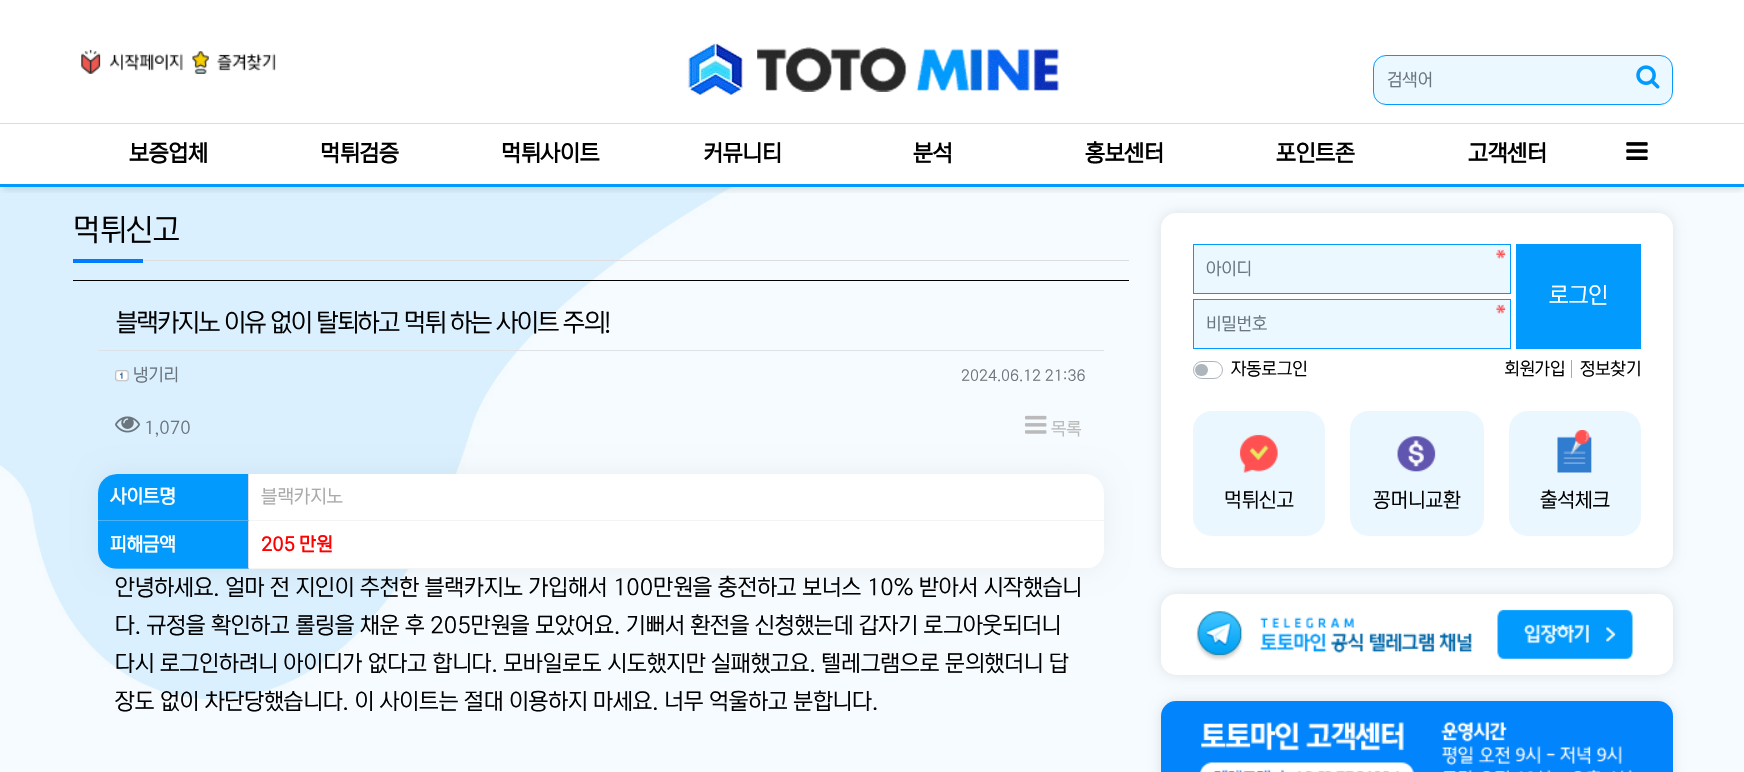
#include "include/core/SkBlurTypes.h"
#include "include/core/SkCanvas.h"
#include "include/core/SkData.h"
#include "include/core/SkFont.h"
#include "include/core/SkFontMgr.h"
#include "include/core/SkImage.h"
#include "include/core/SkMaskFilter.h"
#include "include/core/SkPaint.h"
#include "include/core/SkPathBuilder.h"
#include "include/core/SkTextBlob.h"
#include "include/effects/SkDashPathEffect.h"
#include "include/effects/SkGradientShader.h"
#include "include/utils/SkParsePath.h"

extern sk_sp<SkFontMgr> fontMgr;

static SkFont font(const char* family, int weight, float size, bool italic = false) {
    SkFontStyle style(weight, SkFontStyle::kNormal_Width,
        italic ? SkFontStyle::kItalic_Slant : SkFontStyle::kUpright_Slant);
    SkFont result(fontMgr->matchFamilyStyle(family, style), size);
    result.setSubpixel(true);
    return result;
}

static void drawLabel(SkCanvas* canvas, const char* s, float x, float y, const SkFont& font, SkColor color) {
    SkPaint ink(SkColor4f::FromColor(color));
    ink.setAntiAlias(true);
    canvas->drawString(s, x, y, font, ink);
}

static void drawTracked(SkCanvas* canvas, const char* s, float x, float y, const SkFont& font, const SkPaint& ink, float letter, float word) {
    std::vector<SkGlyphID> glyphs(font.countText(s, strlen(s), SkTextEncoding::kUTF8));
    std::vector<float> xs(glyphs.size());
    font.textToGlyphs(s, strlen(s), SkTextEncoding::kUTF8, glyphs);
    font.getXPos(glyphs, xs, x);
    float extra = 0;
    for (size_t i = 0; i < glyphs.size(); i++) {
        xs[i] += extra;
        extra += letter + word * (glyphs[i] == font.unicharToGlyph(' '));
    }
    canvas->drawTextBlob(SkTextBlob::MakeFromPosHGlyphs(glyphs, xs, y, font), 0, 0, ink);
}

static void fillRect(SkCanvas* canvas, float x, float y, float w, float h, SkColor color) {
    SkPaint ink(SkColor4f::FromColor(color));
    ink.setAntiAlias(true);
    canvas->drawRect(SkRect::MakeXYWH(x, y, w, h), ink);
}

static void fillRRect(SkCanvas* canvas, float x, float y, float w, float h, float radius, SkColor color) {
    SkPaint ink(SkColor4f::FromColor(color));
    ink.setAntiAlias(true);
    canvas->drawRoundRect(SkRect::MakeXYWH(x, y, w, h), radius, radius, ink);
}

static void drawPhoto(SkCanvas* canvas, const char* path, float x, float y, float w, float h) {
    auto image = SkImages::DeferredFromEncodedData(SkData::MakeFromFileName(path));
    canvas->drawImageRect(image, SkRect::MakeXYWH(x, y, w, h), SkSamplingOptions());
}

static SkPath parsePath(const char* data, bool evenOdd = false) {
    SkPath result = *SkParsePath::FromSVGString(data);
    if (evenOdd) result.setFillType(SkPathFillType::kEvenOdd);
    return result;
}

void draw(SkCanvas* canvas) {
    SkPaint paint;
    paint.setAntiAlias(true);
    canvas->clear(0xFFFFFFFF);
    drawPhoto(canvas, "assets/img1.png", 81, 49, 102, 25);
    drawPhoto(canvas, "assets/img2.png", 192, 51, 84, 23);
    drawPhoto(canvas, "assets/img3.png", 687, 43, 372, 53);
    paint.setColor(0xFFEBF8FF);
    canvas->drawRoundRect(SkRect::MakeXYWH(1373.5f, 55.5f, 299, 49), 12.5f, 12.5f, paint);
    paint.setStroke(true);
    paint.setStrokeWidth(1);
    paint.setColor(0xFF029BFD);
    canvas->drawRoundRect(SkRect::MakeXYWH(1373.5f, 55.5f, 299, 49), 12.5f, 12.5f, paint);
    SkFont font1 = font("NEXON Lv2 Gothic", 400, 17.5f);
    drawLabel(canvas, "검색어", 1387, 85, font1, 0xFF6C757D);
    drawPhoto(canvas, "assets/img4.png", 1636, 65, 24, 24);
    drawPhoto(canvas, "assets/img6.png", 0, 187, 1744, 585);
    canvas->save();
    canvas->clipRect(SkRect::MakeXYWH(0, 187, 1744, 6));
    paint.setStroke(false);
    paint.setColor(0x26323C46);
    paint.setMaskFilter(SkMaskFilter::MakeBlur(kNormal_SkBlurStyle, 3));
    canvas->drawRect(SkRect::MakeXYWH(3, 131, 1740, 59), paint);
    paint.setMaskFilter(nullptr);
    canvas->restore();
    fillRect(canvas, 0, 123, 1744, 1, 0xFFDDDDDD);
    fillRect(canvas, 0, 184, 1744, 3, 0xFF029BFD);
    SkFont font2 = font("NEXON Lv2 Gothic", 700, 22.5f);
    drawLabel(canvas, "보증업체", 129, 160, font2, 0xFF000000);
    drawLabel(canvas, "먹튀검증", 320, 160, font2, 0xFF000000);
    drawLabel(canvas, "먹튀사이트", 501, 160, font2, 0xFF000000);
    drawLabel(canvas, "커뮤니티", 703, 160, font2, 0xFF000000);
    drawLabel(canvas, "분석", 913, 160, font2, 0xFF000000);
    drawLabel(canvas, "홍보센터", 1085, 160, font2, 0xFF000000);
    drawLabel(canvas, "포인트존", 1276, 160, font2, 0xFF000000);
    drawLabel(canvas, "고객센터", 1468, 160, font2, 0xFF000000);
    drawPhoto(canvas, "assets/img5.png", 1626, 142, 22, 18);
    SkFont font3 = font("NEXON Lv2 Gothic", 400, 30.5f);
    drawLabel(canvas, "먹튀신고", 73, 239, font3, 0xFF000000);
    fillRect(canvas, 73, 259, 70, 4, 0xFF007BFF);
    fillRect(canvas, 143, 260, 986, 1, 0xFFDDDDDD);
    fillRect(canvas, 73, 280, 1056, 1, 0xFF000000);
    SkFont font4 = font("NEXON Lv2 Gothic", 400, 25);
    paint.setColor(0xFF000000);
    drawTracked(canvas, "블랙카지노 이유 없이 탈퇴하고 먹튀 하는 사이트 주의!", 116, 330, font4, paint, -1.25f, 0);
    fillRect(canvas, 98, 350, 1006, 1, 0xFFDEE2E6);
    drawPhoto(canvas, "assets/img7.png", 115, 370, 14, 12);
    drawLabel(canvas, "냉기리", 133, 380, font1, 0xFF6C757D);
    SkFont font5 = font("NEXON Lv2 Gothic", 400, 15);
    drawLabel(canvas, "2024.06.12 21:36", 961, 380, font5, 0xFF6C757D);
    drawPhoto(canvas, "assets/img8.png", 115, 416, 25, 17);
    drawLabel(canvas, "1,070", 144, 433, font1, 0xFF6C757D);
    drawPhoto(canvas, "assets/img9.png", 1025, 415, 22, 19);
    drawLabel(canvas, "목록", 1051, 434, font1, 0xFFBABABA);
    paint.setColor(0x0D000000);
    paint.setMaskFilter(SkMaskFilter::MakeBlur(kNormal_SkBlurStyle, 12.5f));
    canvas->drawRoundRect(SkRect::MakeXYWH(98, 474, 1006, 95), 19, 19, paint);
    paint.setMaskFilter(nullptr);
    fillRRect(canvas, 98, 474, 1006, 95, 19, 0xFFFFFFFF);
    paint.setColor(0xFF029BFD);
    canvas->drawPath(parsePath("M117 474H249V521H98V493C98 482.5 106.5 474 117 474Z"), paint);
    paint.setColor(0xFFDDDDDD);
    canvas->drawPath(parsePath("M249 474V521L248 520V474Z"), paint);
    paint.setColor(0x54DDDDDD);
    canvas->drawPath(parsePath("M249 521H98V520H248Z"), paint);
    SkFont font6 = font("NEXON Lv2 Gothic", 700, 18.75f);
    drawLabel(canvas, "사이트명", 110, 502, font6, 0xFFFFFFFF);
    fillRect(canvas, 249, 520, 855, 1, 0xFFF4F4F4);
    SkFont font7 = font("NEXON Lv2 Gothic", 400, 18.75f);
    drawLabel(canvas, "블랙카지노", 261, 502, font7, 0xFFAAAAAA);
    paint.setColor(0xFF029BFD);
    canvas->drawPath(parsePath("M98 521H249V569H117C106.5 569 98 560.5 98 550Z"), paint);
    paint.setColor(0xFFDDDDDD);
    canvas->drawPath(parsePath("M249 521V569L248 568V521Z"), paint);
    paint.setColor(0x54DDDDDD);
    canvas->drawPath(parsePath("M249 569L248 568H111L117 569Z"), paint);
    drawLabel(canvas, "피해금액", 110, 550, font6, 0xFFFFFFFF);
    canvas->save();
    canvas->clipPath(parsePath("M117 474H1085C1095.5 474 1104 482.5 1104 493V550C1104 560.5 1095.5 569 1085 569H117C106.5 569 98 560.5 98 550V493C98 482.5 106.5 474 117 474Z"), true);
    fillRect(canvas, 249, 568, 842, 1, 0x54DDDDDD);
    canvas->restore();
    drawLabel(canvas, "205 만원", 261, 550, font6, 0xFFFF0000);
    SkFont font8 = font("NEXON Lv2 Gothic", 400, 22.5f);
    drawLabel(canvas, "안녕하세요. 얼마 전 지인이 추천한 블랙카지노 가입해서 100만원을 충전하고 보너스 10% 받아서 시작했습니", 115, 594, font8, 0xFF000000);
    drawLabel(canvas, "다. 규정을 확인하고 롤링을 채운 후 205만원을 모았어요. 기뻐서 환전을 신청했는데 갑자기 로그아웃되더니", 115, 632, font8, 0xFF000000);
    drawLabel(canvas, "다시 로그인하려니 아이디가 없다고 합니다. 모바일로도 시도했지만 실패했고요. 텔레그램으로 문의했더니 답", 115, 670, font8, 0xFF000000);
    drawLabel(canvas, "장도 없이 차단당했습니다. 이 사이트는 절대 이용하지 마세요. 너무 억울하고 분합니다.", 115, 708, font8, 0xFF000000);
    paint.setColor(0x1A000000);
    paint.setMaskFilter(SkMaskFilter::MakeBlur(kNormal_SkBlurStyle, 6));
    canvas->drawRoundRect(SkRect::MakeXYWH(1161, 213, 512, 355), 15, 15, paint);
    paint.setMaskFilter(nullptr);
    fillRRect(canvas, 1161, 213, 512, 355, 15, 0xFFFFFFFF);
    fillRect(canvas, 1194, 245, 316, 48, 0xFFEBF8FF);
    drawPhoto(canvas, "assets/img10.png", 1496, 249, 10, 10);
    paint.setStroke(true);
    paint.setColor(0xFF029BFD);
    canvas->drawRect(SkRect::MakeXYWH(1193.5f, 244.5f, 317, 49), paint);
    drawLabel(canvas, "아이디", 1206, 274, font1, 0xFF6C757D);
    fillRect(canvas, 1194, 300, 316, 48, 0xFFEBF8FF);
    drawPhoto(canvas, "assets/img10.png", 1496, 304, 10, 10);
    canvas->drawRect(SkRect::MakeXYWH(1193.5f, 299.5f, 317, 49), paint);
    drawLabel(canvas, "비밀번호", 1206, 329, font1, 0xFF6C757D);
    fillRect(canvas, 1516, 244, 125, 105, 0xFF029BFD);
    drawLabel(canvas, "로그인", 1549, 302, font8, 0xFFFFFFFF);
    paint.setColor(0xFFADB5BD);
    canvas->drawRoundRect(SkRect::MakeXYWH(1193.5f, 361.5f, 29, 17), 8.5f, 8.5f, paint);
    drawLabel(canvas, "자동로그인", 1231, 374, font1, 0xFF000000);
    fillRRect(canvas, 1195, 364, 13, 12, 6, 0xFFADB5BD);
    drawLabel(canvas, "회원가입", 1504, 374, font1, 0xFF000000);
    fillRect(canvas, 1571, 360, 1, 18, 0xFFAAAAAA);
    drawLabel(canvas, "정보찾기", 1580, 374, font1, 0xFF000000);
    fillRRect(canvas, 1193, 411, 132, 125, 19, 0xFFEBF7FF);
    drawPhoto(canvas, "assets/img11.png", 1239, 434, 39, 39);
    SkFont font9 = font("NEXON Lv2 Gothic", 400, 20);
    drawLabel(canvas, "먹튀신고", 1224, 506, font9, 0xFF000000);
    fillRRect(canvas, 1350, 411, 134, 125, 19, 0xFFEBF7FF);
    drawPhoto(canvas, "assets/img12.png", 1397, 436, 39, 36);
    drawLabel(canvas, "꽁머니교환", 1373, 506, font9, 0xFF000000);
    fillRRect(canvas, 1509, 411, 132, 125, 19, 0xFFEBF7FF);
    drawPhoto(canvas, "assets/img13.png", 1557, 430, 35, 43);
    drawLabel(canvas, "출석체크", 1540, 506, font9, 0xFF000000);
    paint.setStroke(false);
    paint.setColor(0x1A000000);
    paint.setMaskFilter(SkMaskFilter::MakeBlur(kNormal_SkBlurStyle, 6));
    canvas->drawRoundRect(SkRect::MakeXYWH(1161, 594, 512, 81), 15, 15, paint);
    paint.setMaskFilter(nullptr);
    fillRRect(canvas, 1161, 594, 512, 81, 15, 0xFFFFFFFF);
    drawPhoto(canvas, "assets/img14.png", 1196, 609, 437, 52);
    paint.setMaskFilter(SkMaskFilter::MakeBlur(kNormal_SkBlurStyle, 6));
    canvas->drawRoundRect(SkRect::MakeXYWH(1161, 701, 512, 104), 15, 15, paint);
    paint.setMaskFilter(nullptr);
    fillRRect(canvas, 1161, 701, 512, 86, 15, 0xFF0284FD);
    drawPhoto(canvas, "assets/img15.png", 1199, 722, 433, 50);
}
